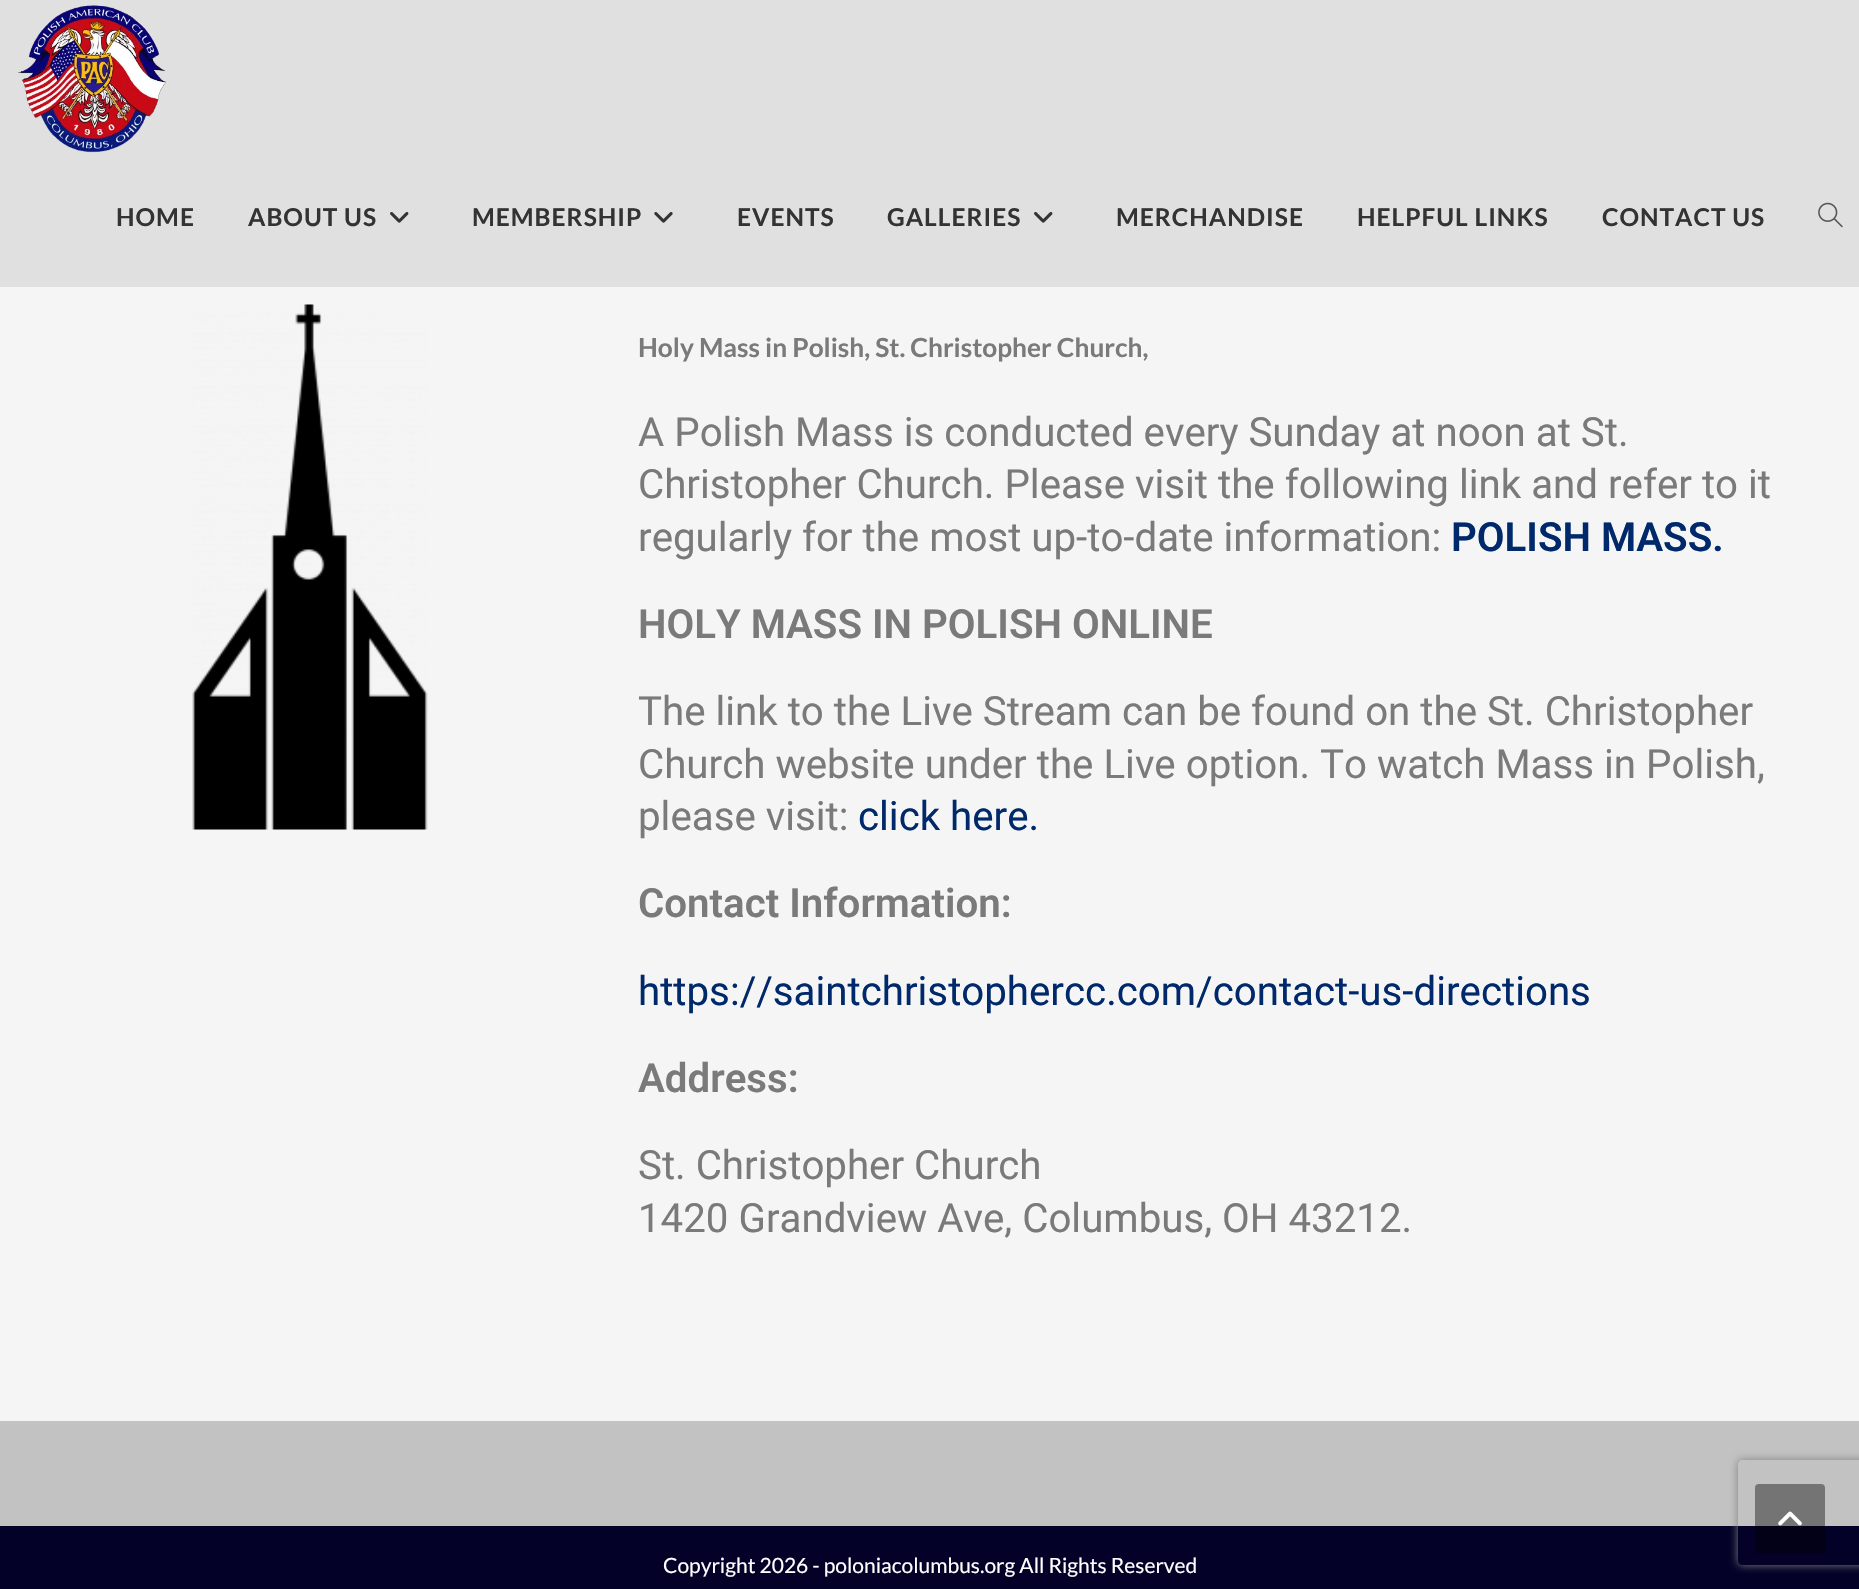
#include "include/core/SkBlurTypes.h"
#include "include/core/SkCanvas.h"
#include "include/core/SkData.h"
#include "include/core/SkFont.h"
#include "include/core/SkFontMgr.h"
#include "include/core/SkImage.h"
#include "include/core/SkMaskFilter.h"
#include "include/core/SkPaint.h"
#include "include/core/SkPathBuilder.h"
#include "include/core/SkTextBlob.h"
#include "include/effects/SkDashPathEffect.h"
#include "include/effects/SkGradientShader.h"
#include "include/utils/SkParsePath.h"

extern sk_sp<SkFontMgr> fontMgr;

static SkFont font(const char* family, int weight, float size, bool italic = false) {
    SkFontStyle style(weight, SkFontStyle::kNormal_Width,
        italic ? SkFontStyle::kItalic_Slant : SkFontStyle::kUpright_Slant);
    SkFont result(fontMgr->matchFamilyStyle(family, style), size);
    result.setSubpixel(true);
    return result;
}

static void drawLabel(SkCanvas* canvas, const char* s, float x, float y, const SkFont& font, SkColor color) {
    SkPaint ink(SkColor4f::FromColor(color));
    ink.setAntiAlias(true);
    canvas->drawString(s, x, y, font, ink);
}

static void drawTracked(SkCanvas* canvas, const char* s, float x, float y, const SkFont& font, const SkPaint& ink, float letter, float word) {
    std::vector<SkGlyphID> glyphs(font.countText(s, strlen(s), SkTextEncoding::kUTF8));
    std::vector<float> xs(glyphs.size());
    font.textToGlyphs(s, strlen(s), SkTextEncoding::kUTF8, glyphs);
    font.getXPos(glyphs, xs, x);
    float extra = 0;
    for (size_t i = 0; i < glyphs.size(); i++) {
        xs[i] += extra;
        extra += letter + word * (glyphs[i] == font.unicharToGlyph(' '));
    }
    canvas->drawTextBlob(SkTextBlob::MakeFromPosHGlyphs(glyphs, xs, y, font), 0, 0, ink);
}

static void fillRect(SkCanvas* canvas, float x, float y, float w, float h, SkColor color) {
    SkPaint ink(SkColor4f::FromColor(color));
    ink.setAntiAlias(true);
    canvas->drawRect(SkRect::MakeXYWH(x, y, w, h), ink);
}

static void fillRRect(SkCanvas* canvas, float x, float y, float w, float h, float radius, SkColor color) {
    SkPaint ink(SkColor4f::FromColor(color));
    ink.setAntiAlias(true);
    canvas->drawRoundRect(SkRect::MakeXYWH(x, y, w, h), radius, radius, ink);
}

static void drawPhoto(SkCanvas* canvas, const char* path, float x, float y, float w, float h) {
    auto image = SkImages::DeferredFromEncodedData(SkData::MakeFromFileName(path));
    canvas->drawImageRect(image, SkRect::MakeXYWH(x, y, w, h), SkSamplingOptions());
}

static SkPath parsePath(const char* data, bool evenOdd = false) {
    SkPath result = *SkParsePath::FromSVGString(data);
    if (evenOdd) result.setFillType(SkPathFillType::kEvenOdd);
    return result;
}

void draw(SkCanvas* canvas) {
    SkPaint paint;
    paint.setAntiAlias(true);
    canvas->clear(0xFFF5F5F5);
    fillRect(canvas, 0, 0, 1859, 287, 0xFFE0E0E0);
    drawPhoto(canvas, "assets/img1.png", 18, 5, 149, 148);
    SkFont font1 = font("Lato", 700, 24.5f);
    paint.setColor(0xFF333333);
    drawTracked(canvas, "HOME", 116, 226, font1, paint, 1, 0);
    drawTracked(canvas, "ABOUT US", 248, 226, font1, paint, 1, 0);
    drawPhoto(canvas, "assets/img2.png", 390, 212, 19, 11);
    drawTracked(canvas, "MEMBERSHIP", 472, 226, font1, paint, 1, 0);
    drawPhoto(canvas, "assets/img3.png", 654, 212, 19, 11);
    drawTracked(canvas, "EVENTS", 737, 226, font1, paint, 1, 0);
    drawTracked(canvas, "GALLERIES", 887, 226, font1, paint, 1, 0);
    drawPhoto(canvas, "assets/img2.png", 1034, 212, 19, 11);
    drawTracked(canvas, "MERCHANDISE", 1116, 226, font1, paint, 1, 0);
    drawTracked(canvas, "HELPFUL LINKS", 1357, 226, font1, paint, 1, 0);
    drawTracked(canvas, "CONTACT US", 1602, 226, font1, paint, 1, 0);
    drawPhoto(canvas, "assets/img4.png", 1818, 202, 25, 26);
    drawPhoto(canvas, "assets/img5.png", 192, 304, 236, 526);
    SkFont font2 = font("Lato", 700, 26.25f);
    drawLabel(canvas, "Holy Mass in Polish, St. Christopher Church,", 638, 357, font2, 0xFF7A7A7A);
    SkFont font3 = font("Roboto", 400, 40.25f);
    drawLabel(canvas, "A Polish Mass is conducted every Sunday at noon at St.", 638, 446, font3, 0xFF7A7A7A);
    drawLabel(canvas, "Christopher Church. Please visit the following link and refer to it", 638, 498, font3, 0xFF7A7A7A);
    drawLabel(canvas, "regularly for the most up-to-date information:", 638, 551, font3, 0xFF7A7A7A);
    SkFont font4 = font("Roboto", 600, 40.25f);
    drawLabel(canvas, "POLISH MASS.", 1451, 551, font4, 0xFF00296B);
    drawLabel(canvas, "HOLY MASS IN POLISH ONLINE", 638, 638, font4, 0xFF7A7A7A);
    drawLabel(canvas, "The link to the Live Stream can be found on the St. Christopher", 638, 725, font3, 0xFF7A7A7A);
    drawLabel(canvas, "Church website under the Live option. To watch Mass in Polish,", 638, 778, font3, 0xFF7A7A7A);
    drawLabel(canvas, "please visit:", 638, 830, font3, 0xFF7A7A7A);
    drawLabel(canvas, "click here.", 858, 830, font3, 0xFF00296B);
    drawLabel(canvas, "Contact Information:", 638, 917, font4, 0xFF7A7A7A);
    drawLabel(canvas, "https://saintchristophercc.com/contact-us-directions", 638, 1005, font3, 0xFF00296B);
    drawLabel(canvas, "Address:", 638, 1092, font4, 0xFF7A7A7A);
    drawLabel(canvas, "St. Christopher Church", 638, 1179, font3, 0xFF7A7A7A);
    drawLabel(canvas, "1420 Grandview Ave, Columbus, OH 43212.", 638, 1232, font3, 0xFF7A7A7A);
    fillRect(canvas, 0, 1421, 1859, 105, 0xFFC2C2C2);
    fillRect(canvas, 0, 1526, 1859, 63, 0xFF030127);
    SkFont font5 = font("Lato", 400, 21);
    drawLabel(canvas, "Copyright 2026 - poloniacolumbus.org All Rights Reserved", 663, 1573, font5, 0xFFFFFFFF);
    canvas->save();
    canvas->clipPath(parsePath("M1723 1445H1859V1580H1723ZM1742 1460H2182C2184 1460 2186 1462 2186 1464V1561C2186 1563 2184 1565 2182 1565H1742C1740 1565 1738 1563 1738 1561V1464C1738 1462 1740 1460 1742 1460Z", true), true);
    paint.setColor(0xFF808080);
    paint.setMaskFilter(SkMaskFilter::MakeBlur(kNormal_SkBlurStyle, 4.5f));
    canvas->drawRoundRect(SkRect::MakeXYWH(1738, 1460, 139, 105), 4, 4, paint);
    paint.setMaskFilter(nullptr);
    canvas->restore();
    fillRRect(canvas, 1755, 1484, 70, 70, 4, 0x66000000);
    drawPhoto(canvas, "assets/img6.png", 1778, 1511, 24, 15);
}
